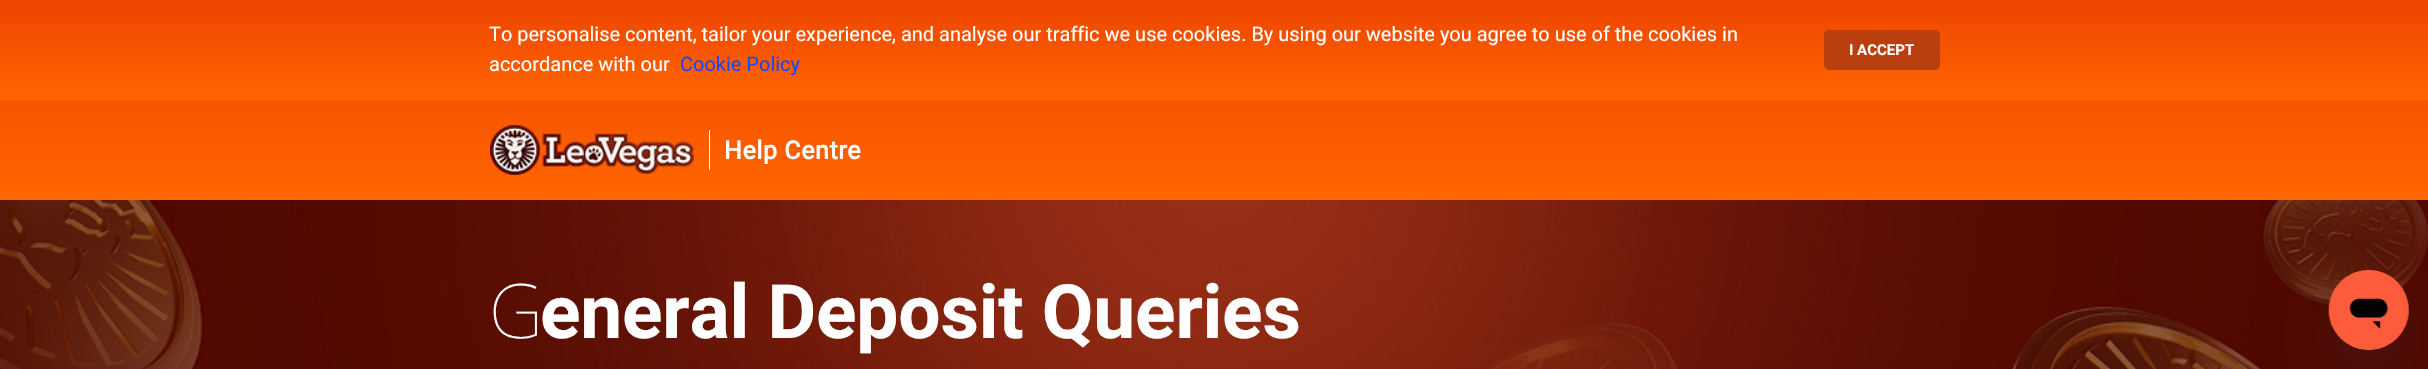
#include "include/core/SkBlurTypes.h"
#include "include/core/SkCanvas.h"
#include "include/core/SkData.h"
#include "include/core/SkFont.h"
#include "include/core/SkFontMgr.h"
#include "include/core/SkImage.h"
#include "include/core/SkMaskFilter.h"
#include "include/core/SkPaint.h"
#include "include/core/SkPathBuilder.h"
#include "include/core/SkTextBlob.h"
#include "include/effects/SkDashPathEffect.h"
#include "include/effects/SkGradientShader.h"
#include "include/utils/SkParsePath.h"

extern sk_sp<SkFontMgr> fontMgr;

static SkFont font(const char* family, int weight, float size, bool italic = false) {
    SkFontStyle style(weight, SkFontStyle::kNormal_Width,
        italic ? SkFontStyle::kItalic_Slant : SkFontStyle::kUpright_Slant);
    SkFont result(fontMgr->matchFamilyStyle(family, style), size);
    result.setSubpixel(true);
    return result;
}

static void drawLabel(SkCanvas* canvas, const char* s, float x, float y, const SkFont& font, SkColor color) {
    SkPaint ink(SkColor4f::FromColor(color));
    ink.setAntiAlias(true);
    canvas->drawString(s, x, y, font, ink);
}

static void drawTracked(SkCanvas* canvas, const char* s, float x, float y, const SkFont& font, const SkPaint& ink, float letter, float word) {
    std::vector<SkGlyphID> glyphs(font.countText(s, strlen(s), SkTextEncoding::kUTF8));
    std::vector<float> xs(glyphs.size());
    font.textToGlyphs(s, strlen(s), SkTextEncoding::kUTF8, glyphs);
    font.getXPos(glyphs, xs, x);
    float extra = 0;
    for (size_t i = 0; i < glyphs.size(); i++) {
        xs[i] += extra;
        extra += letter + word * (glyphs[i] == font.unicharToGlyph(' '));
    }
    canvas->drawTextBlob(SkTextBlob::MakeFromPosHGlyphs(glyphs, xs, y, font), 0, 0, ink);
}

static void fillRect(SkCanvas* canvas, float x, float y, float w, float h, SkColor color) {
    SkPaint ink(SkColor4f::FromColor(color));
    ink.setAntiAlias(true);
    canvas->drawRect(SkRect::MakeXYWH(x, y, w, h), ink);
}

static void fillRRect(SkCanvas* canvas, float x, float y, float w, float h, float radius, SkColor color) {
    SkPaint ink(SkColor4f::FromColor(color));
    ink.setAntiAlias(true);
    canvas->drawRoundRect(SkRect::MakeXYWH(x, y, w, h), radius, radius, ink);
}

static void drawPhoto(SkCanvas* canvas, const char* path, float x, float y, float w, float h) {
    auto image = SkImages::DeferredFromEncodedData(SkData::MakeFromFileName(path));
    canvas->drawImageRect(image, SkRect::MakeXYWH(x, y, w, h), SkSamplingOptions());
}

void draw(SkCanvas* canvas) {
    SkPaint paint;
    paint.setAntiAlias(true);
    canvas->clear(0xFFFFFFFF);
    {
        const SkColor colors[] = {0xFFEE4400, 0xFFFF6600};
        const float stops[] = {0, 1};
        const SkPoint ends[] = {{1214, 0}, {1214, 200}};
        paint.setShader(SkGradientShader::MakeLinear(ends, colors, stops, 2, SkTileMode::kClamp));
        paint.setAlpha(255);
    }
    canvas->drawRect(SkRect::MakeXYWH(0, 100, 2428, 100), paint);
    {
        const SkColor colors[] = {0xFFEE4400, 0xFFFF6600};
        const float stops[] = {0, 1};
        const SkPoint ends[] = {{1214, 0}, {1214, 100}};
        paint.setShader(SkGradientShader::MakeLinear(ends, colors, stops, 2, SkTileMode::kClamp));
        paint.setAlpha(255);
    }
    canvas->drawRect(SkRect::MakeXYWH(0, 0, 2428, 100), paint);
    SkFont font1 = font("Roboto", 400, 20);
    drawLabel(canvas, "To personalise content, tailor your experience, and analyse our traffic we use cookies. By using our website you agree to use of the cookies in", 489, 41, font1, 0xFFFFFFFF);
    drawLabel(canvas, "accordance with our", 489, 71, font1, 0xFFFFFFFF);
    drawLabel(canvas, "Cookie Policy", 680, 71, font1, 0xFF1848F7);
    fillRRect(canvas, 1824, 30, 116, 40, 5, 0xFFB9400E);
    SkFont font2 = font("Roboto", 700, 15);
    drawLabel(canvas, "I ACCEPT", 1849, 55, font2, 0xFFFFFFFF);
    drawPhoto(canvas, "assets/img1.png", 490, 125, 204, 50);
    fillRect(canvas, 709, 130, 1, 40, 0xFFFFFFFF);
    SkFont font3 = font("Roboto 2", 700, 25);
    paint.setShader(nullptr);
    paint.setColor(0xFFFFFFFF);
    drawTracked(canvas, "Help Centre", 724, 159, font3, paint, 0.6f, 0);
    drawPhoto(canvas, "assets/img2.png", 0, 200, 2428, 169);
    SkFont font4 = font("Noto Sans", 100, 75);
    drawTracked(canvas, "G", 489, 338, font4, paint, -0.25f, 0);
    SkFont font5 = font("Roboto", 700, 75);
    drawTracked(canvas, "eneral Deposit Queries", 540, 338, font5, paint, -0.25f, 0);
    paint.setColor(0x2617494D);
    paint.setMaskFilter(SkMaskFilter::MakeBlur(kNormal_SkBlurStyle, 19));
    canvas->drawRoundRect(SkRect::MakeXYWH(2329, 295, 80, 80), 40, 40, paint);
    paint.setMaskFilter(nullptr);
    drawPhoto(canvas, "assets/img3.png", 2328, 270, 81, 80);
}
